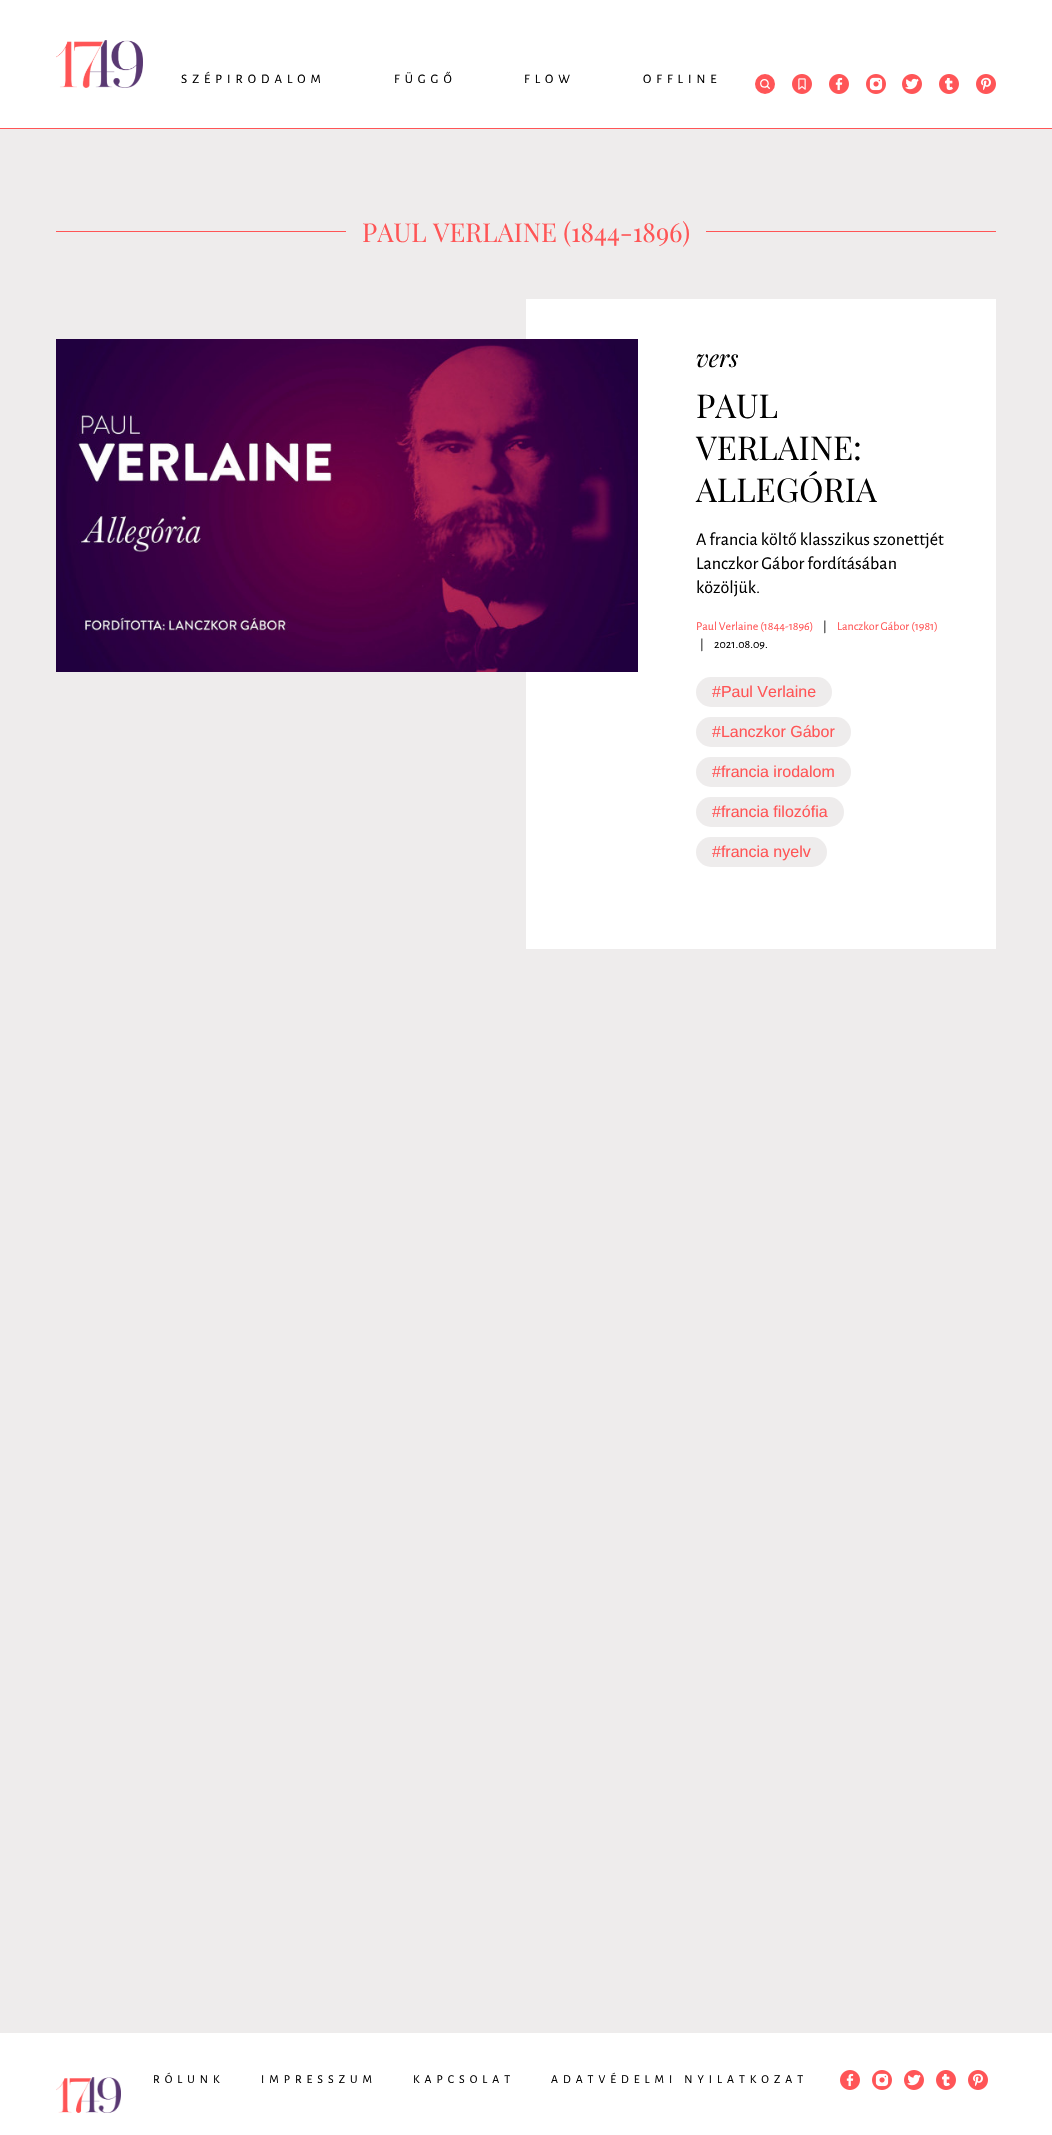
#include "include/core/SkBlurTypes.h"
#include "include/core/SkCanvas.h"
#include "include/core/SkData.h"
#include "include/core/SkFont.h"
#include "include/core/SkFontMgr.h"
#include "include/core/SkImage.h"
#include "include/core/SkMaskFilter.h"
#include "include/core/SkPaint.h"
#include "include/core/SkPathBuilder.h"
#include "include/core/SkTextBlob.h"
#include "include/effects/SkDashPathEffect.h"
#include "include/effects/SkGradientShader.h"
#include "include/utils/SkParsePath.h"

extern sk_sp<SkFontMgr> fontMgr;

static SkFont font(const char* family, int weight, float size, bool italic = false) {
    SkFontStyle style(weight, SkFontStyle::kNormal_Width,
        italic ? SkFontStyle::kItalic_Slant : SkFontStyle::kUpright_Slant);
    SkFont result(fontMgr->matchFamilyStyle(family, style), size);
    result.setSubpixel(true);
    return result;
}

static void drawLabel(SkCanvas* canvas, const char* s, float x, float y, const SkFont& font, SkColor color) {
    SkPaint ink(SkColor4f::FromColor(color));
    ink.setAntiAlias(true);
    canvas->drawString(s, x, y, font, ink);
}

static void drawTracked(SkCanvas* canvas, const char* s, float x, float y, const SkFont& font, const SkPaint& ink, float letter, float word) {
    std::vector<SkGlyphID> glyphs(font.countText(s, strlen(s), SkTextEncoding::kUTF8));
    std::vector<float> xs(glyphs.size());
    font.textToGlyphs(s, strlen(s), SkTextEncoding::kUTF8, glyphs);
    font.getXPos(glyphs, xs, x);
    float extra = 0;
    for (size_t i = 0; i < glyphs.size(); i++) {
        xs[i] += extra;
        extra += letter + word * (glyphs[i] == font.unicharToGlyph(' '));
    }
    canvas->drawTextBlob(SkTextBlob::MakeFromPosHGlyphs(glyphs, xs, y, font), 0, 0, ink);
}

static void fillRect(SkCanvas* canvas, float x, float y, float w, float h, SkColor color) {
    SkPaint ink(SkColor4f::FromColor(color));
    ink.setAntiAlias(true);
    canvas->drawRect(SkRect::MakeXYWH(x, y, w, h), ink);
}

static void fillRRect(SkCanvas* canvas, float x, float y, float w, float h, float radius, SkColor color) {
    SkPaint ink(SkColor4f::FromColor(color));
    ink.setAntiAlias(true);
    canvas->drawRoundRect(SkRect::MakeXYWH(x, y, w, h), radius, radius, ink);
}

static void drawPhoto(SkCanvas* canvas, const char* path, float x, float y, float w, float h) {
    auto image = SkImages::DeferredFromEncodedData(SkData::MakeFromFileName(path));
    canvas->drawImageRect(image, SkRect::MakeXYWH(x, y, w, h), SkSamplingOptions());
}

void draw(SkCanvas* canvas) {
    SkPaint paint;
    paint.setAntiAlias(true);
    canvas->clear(0xFFEEECEC);
    fillRect(canvas, 0, 0, 1052, 128, 0xFFFFFFFF);
    fillRect(canvas, 0, 128, 1052, 1, 0xFFFF5556);
    drawPhoto(canvas, "assets/img1.png", 56, 40, 87, 48);
    SkFont font1 = font("Alegreya Sans", 400, 13);
    paint.setColor(0xFF000000);
    drawTracked(canvas, "SZÉPIRODALOM", 181, 83, font1, paint, 5, 0);
    drawTracked(canvas, "FÜGGŐ", 394, 83, font1, paint, 5, 0);
    drawTracked(canvas, "FLOW", 524, 83, font1, paint, 5, 0);
    drawTracked(canvas, "OFFLINE", 643, 83, font1, paint, 5, 0);
    drawPhoto(canvas, "assets/img2.png", 755, 74, 20, 20);
    drawPhoto(canvas, "assets/img3.png", 792, 74, 20, 20);
    drawPhoto(canvas, "assets/img4.png", 829, 74, 20, 20);
    drawPhoto(canvas, "assets/img5.png", 866, 74, 20, 20);
    drawPhoto(canvas, "assets/img6.png", 902, 74, 20, 20);
    drawPhoto(canvas, "assets/img7.png", 939, 74, 20, 20);
    drawPhoto(canvas, "assets/img8.png", 976, 74, 20, 20);
    fillRect(canvas, 56, 231, 290, 1, 0xFFFF5556);
    SkFont font2 = font("Playfair Display", 400, 26);
    drawLabel(canvas, "PAUL VERLAINE (1844-1896)", 362, 242, font2, 0xFFFF5556);
    fillRect(canvas, 706, 231, 290, 1, 0xFFFF5556);
    fillRect(canvas, 526, 299, 470, 650, 0xFFFFFFFF);
    drawPhoto(canvas, "assets/img9.png", 56, 339, 582, 333);
    SkFont font3 = font("Playfair Display", 400, 24, true);
    drawLabel(canvas, "vers", 696, 367, font3, 0xFF000000);
    SkFont font4 = font("Playfair Display", 400, 33);
    drawLabel(canvas, "PAUL", 696, 418, font4, 0xFF000000);
    drawLabel(canvas, "VERLAINE:", 696, 460, font4, 0xFF000000);
    drawLabel(canvas, "ALLEGÓRIA", 696, 502, font4, 0xFF000000);
    SkFont font5 = font("Alegreya Sans", 400, 18);
    drawLabel(canvas, "A francia költő klasszikus szonettjét", 696, 545, font5, 0xFF000000);
    drawLabel(canvas, "Lanczkor Gábor fordításában", 696, 569, font5, 0xFF000000);
    drawLabel(canvas, "közöljük.", 696, 593, font5, 0xFF000000);
    SkFont font6 = font("Alegreya Sans", 400, 12);
    drawLabel(canvas, "Paul Verlaine (1844-1896)", 696, 630, font6, 0xFFFF5556);
    drawLabel(canvas, "|", 823, 630, font6, 0xFF000000);
    drawLabel(canvas, "Lanczkor Gábor (1981)", 837, 630, font6, 0xFFFF5556);
    drawLabel(canvas, "|", 700, 648, font6, 0xFF000000);
    drawLabel(canvas, "2021.08.09.", 714, 648, font6, 0xFF000000);
    fillRRect(canvas, 696, 677, 136, 30, 15, 0xFFEEECEC);
    SkFont font7 = font("Liberation Sans", 400, 16);
    drawLabel(canvas, "#Paul Verlaine", 712, 697, font7, 0xFFFF5556);
    fillRRect(canvas, 696, 717, 155, 30, 15, 0xFFEEECEC);
    drawLabel(canvas, "#Lanczkor Gábor", 712, 737, font7, 0xFFFF5556);
    fillRRect(canvas, 696, 757, 155, 30, 15, 0xFFEEECEC);
    drawLabel(canvas, "#francia irodalom", 712, 777, font7, 0xFFFF5556);
    fillRRect(canvas, 696, 797, 148, 30, 15, 0xFFEEECEC);
    drawLabel(canvas, "#francia filozófia", 712, 817, font7, 0xFFFF5556);
    fillRRect(canvas, 696, 837, 131, 30, 15, 0xFFEEECEC);
    drawLabel(canvas, "#francia nyelv", 712, 857, font7, 0xFFFF5556);
    fillRect(canvas, 0, 2033, 1052, 102, 0xFFFFFFFF);
    drawPhoto(canvas, "assets/img10.png", 56, 2077, 65, 36);
    drawTracked(canvas, "RÓLUNK", 153, 2083, font6, paint, 5, 0);
    drawTracked(canvas, "IMPRESSZUM", 261, 2083, font6, paint, 5, 0);
    drawTracked(canvas, "KAPCSOLAT", 413, 2083, font6, paint, 5, 0);
    drawTracked(canvas, "ADATVÉDELMI NYILATKOZAT", 551, 2083, font6, paint, 5, 0);
    drawPhoto(canvas, "assets/img4.png", 840, 2070, 20, 20);
    drawPhoto(canvas, "assets/img5.png", 872, 2070, 20, 20);
    drawPhoto(canvas, "assets/img6.png", 904, 2070, 20, 20);
    drawPhoto(canvas, "assets/img7.png", 936, 2070, 20, 20);
    drawPhoto(canvas, "assets/img8.png", 968, 2070, 20, 20);
}
